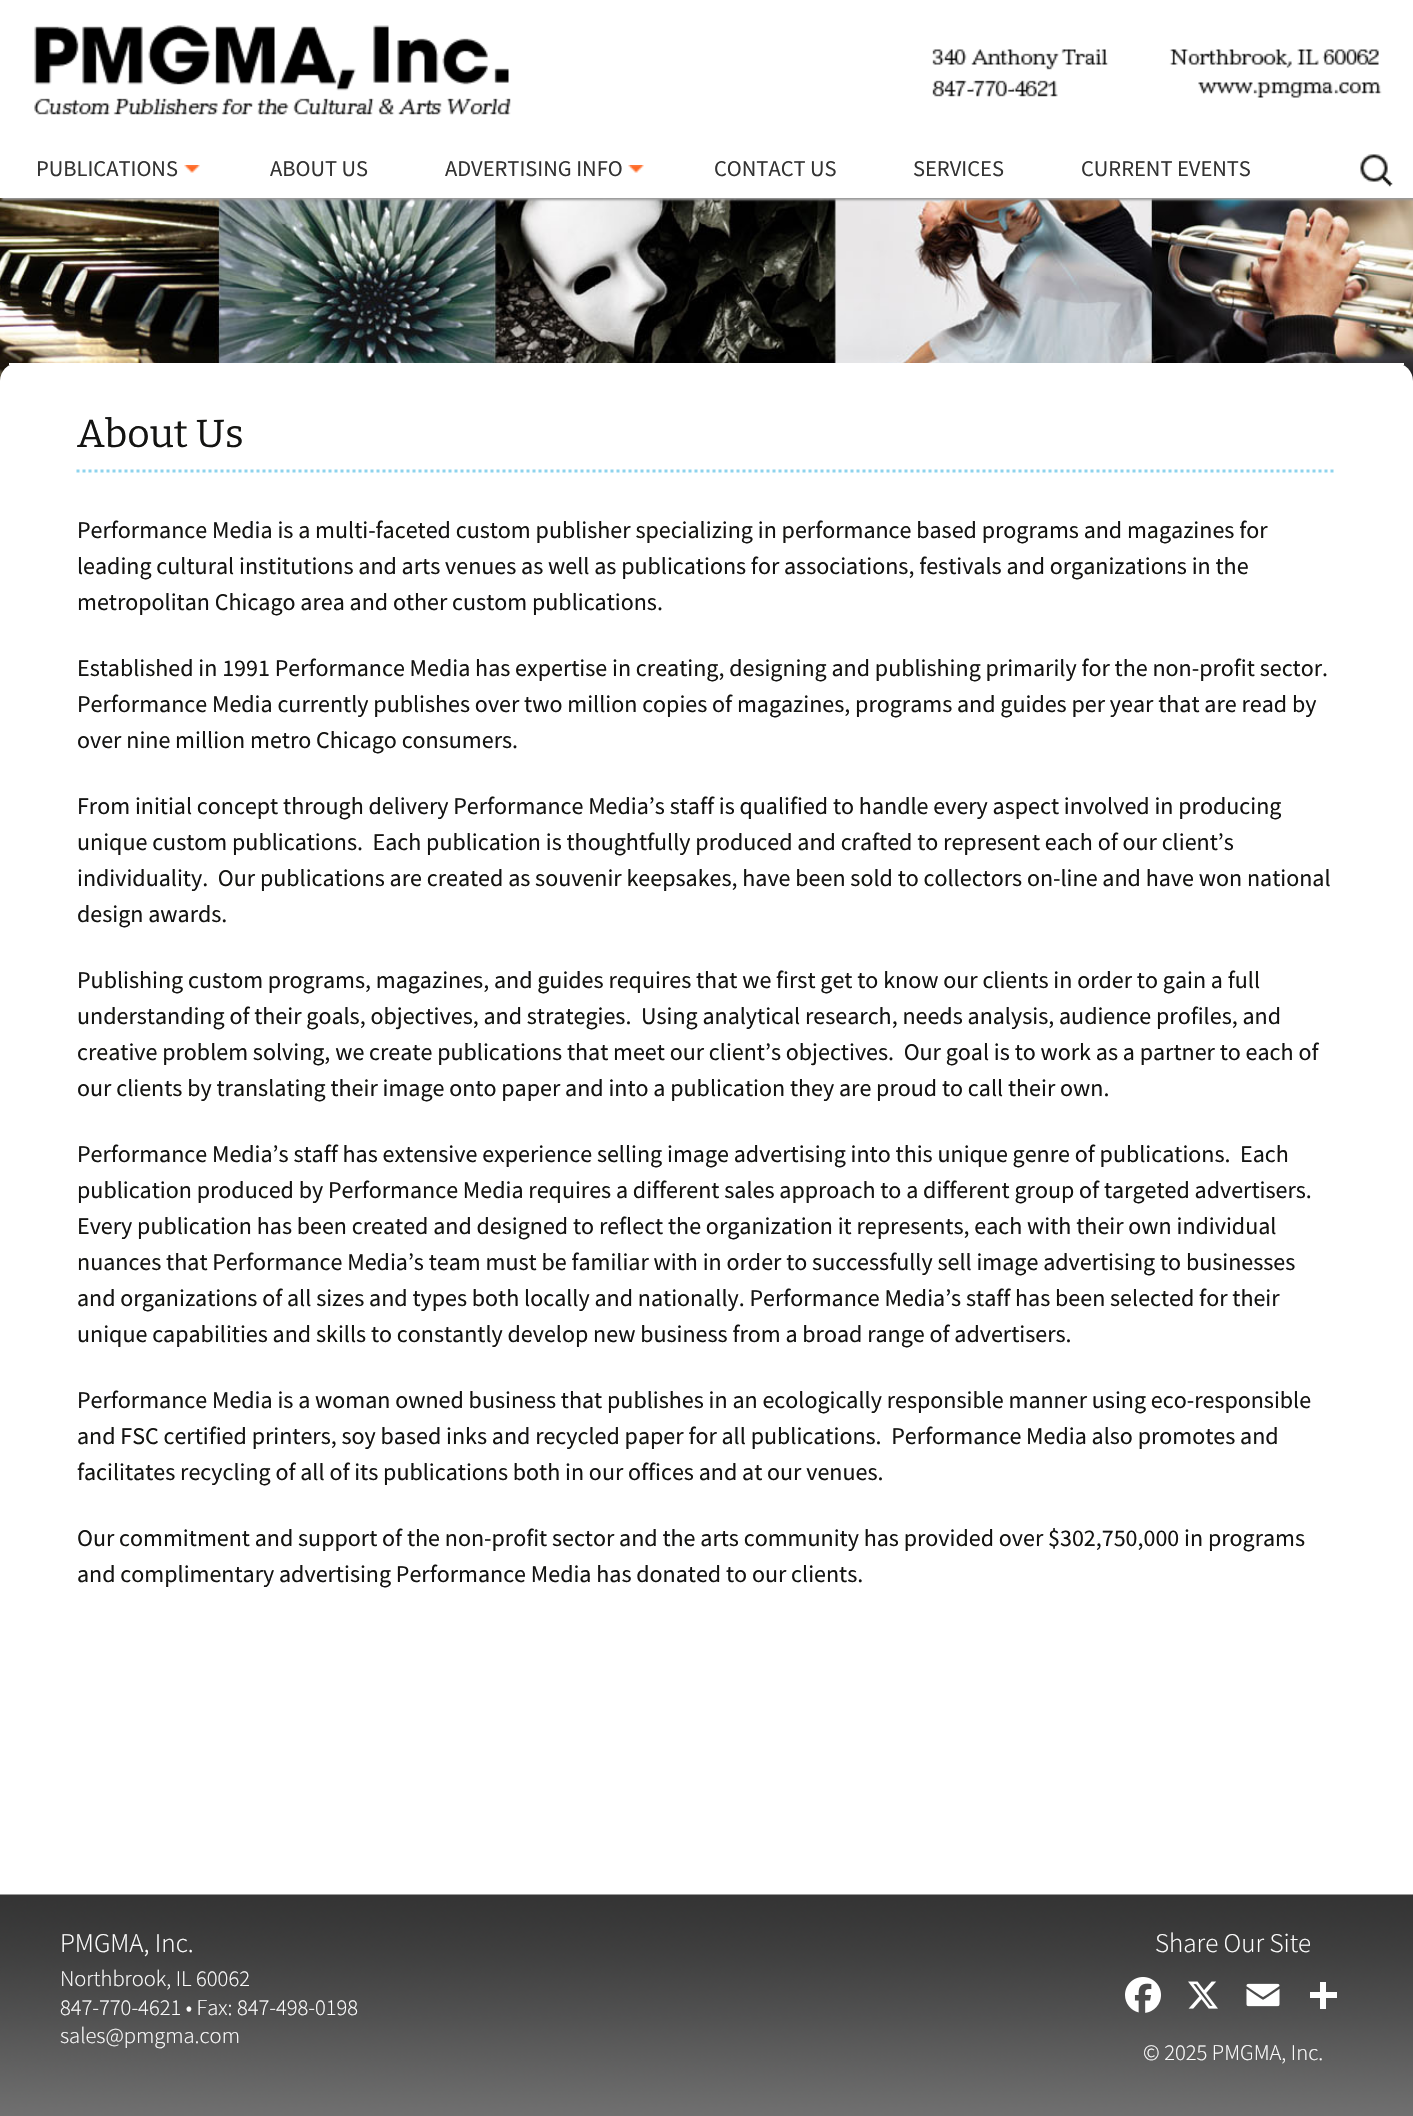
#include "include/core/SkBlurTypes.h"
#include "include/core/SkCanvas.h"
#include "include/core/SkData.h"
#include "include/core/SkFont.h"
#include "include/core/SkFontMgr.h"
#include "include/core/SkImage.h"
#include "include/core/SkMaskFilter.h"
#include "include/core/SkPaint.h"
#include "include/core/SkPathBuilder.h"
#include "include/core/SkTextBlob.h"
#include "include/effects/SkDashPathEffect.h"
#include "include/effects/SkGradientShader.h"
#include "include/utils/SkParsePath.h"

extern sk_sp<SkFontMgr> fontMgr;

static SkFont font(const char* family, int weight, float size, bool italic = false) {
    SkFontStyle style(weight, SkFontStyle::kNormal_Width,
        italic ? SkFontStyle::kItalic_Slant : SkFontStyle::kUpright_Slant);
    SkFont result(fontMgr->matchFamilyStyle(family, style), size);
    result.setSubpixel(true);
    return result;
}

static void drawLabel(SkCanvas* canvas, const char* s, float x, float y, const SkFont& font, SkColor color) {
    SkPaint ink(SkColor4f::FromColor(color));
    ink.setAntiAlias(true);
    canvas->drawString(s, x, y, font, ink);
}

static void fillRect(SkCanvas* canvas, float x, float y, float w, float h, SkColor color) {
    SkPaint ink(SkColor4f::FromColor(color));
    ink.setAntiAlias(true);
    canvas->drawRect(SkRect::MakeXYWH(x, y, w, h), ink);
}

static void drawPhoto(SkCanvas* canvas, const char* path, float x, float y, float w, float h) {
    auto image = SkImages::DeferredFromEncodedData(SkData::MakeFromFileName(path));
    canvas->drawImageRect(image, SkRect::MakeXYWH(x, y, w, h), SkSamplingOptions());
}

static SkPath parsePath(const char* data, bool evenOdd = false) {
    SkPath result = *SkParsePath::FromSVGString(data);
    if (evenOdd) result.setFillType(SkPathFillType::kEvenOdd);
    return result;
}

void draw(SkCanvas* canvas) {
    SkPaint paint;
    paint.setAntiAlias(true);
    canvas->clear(0xFFFFFFFF);
    drawPhoto(canvas, "assets/img6.png", 0, 198, 1413, 183);
    paint.setColor(0xFF999999);
    paint.setMaskFilter(SkMaskFilter::MakeBlur(kNormal_SkBlurStyle, 1));
    canvas->drawRect(SkRect::MakeXYWH(2, -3, 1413, 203), paint);
    paint.setMaskFilter(nullptr);
    fillRect(canvas, 0, 0, 1413, 198, 0xFFFFFFFF);
    drawPhoto(canvas, "assets/img1.png", 34, 25, 477, 90);
    drawPhoto(canvas, "assets/img2.png", 932, 49, 450, 49);
    SkFont font1 = font("Source Sans Pro", 400, 22.5f);
    drawLabel(canvas, "PUBLICATIONS", 36, 176, font1, 0xFF333333);
    drawPhoto(canvas, "assets/img3.png", 184, 165, 16, 8);
    drawLabel(canvas, "ABOUT US", 270, 176, font1, 0xFF333333);
    drawLabel(canvas, "ADVERTISING INFO", 445, 176, font1, 0xFF333333);
    drawPhoto(canvas, "assets/img4.png", 628, 165, 16, 8);
    drawLabel(canvas, "CONTACT US", 714, 176, font1, 0xFF333333);
    drawLabel(canvas, "SERVICES", 913, 176, font1, 0xFF333333);
    drawLabel(canvas, "CURRENT EVENTS", 1081, 176, font1, 0xFF333333);
    drawPhoto(canvas, "assets/img5.png", 1360, 154, 33, 33);
    paint.setColor(0xFFFFFFFF);
    canvas->drawPath(parsePath("M18 363H1395C1405 363 1413 371 1413 381V1688H0V381C0 371 8 363 18 363Z"), paint);
    fillRect(canvas, 9, 363, 1395, 2, 0xFFFFFFFF);
    paint.setStroke(true);
    paint.setStrokeWidth(3);
    paint.setColor(0xFF8ED3ED);
    paint.setPathEffect(SkDashPathEffect::Make({{3, 3}}, 0));
    canvas->drawPath(parsePath("M76.5 471H1336.5"), paint);
    paint.setPathEffect(nullptr);
    SkFont font2 = font("Bitter", 400, 39);
    drawLabel(canvas, "About Us", 77, 447, font2, 0xFF141412);
    SkFont font3 = font("Source Sans Pro", 400, 24);
    drawLabel(canvas, "Performance Media is a multi-faceted custom publisher specializing in performance based programs and magazines for", 77, 538, font3, 0xFF141412);
    drawLabel(canvas, "leading cultural institutions and arts venues as well as publications for associations, festivals and organizations in the", 77, 574, font3, 0xFF141412);
    drawLabel(canvas, "metropolitan Chicago area and other custom publications.", 77, 610, font3, 0xFF141412);
    drawLabel(canvas, "Established in 1991 Performance Media has expertise in creating, designing and publishing primarily for the non-profit sector.", 77, 676, font3, 0xFF141412);
    drawLabel(canvas, "Performance Media currently publishes over two million copies of magazines, programs and guides per year that are read by", 77, 712, font3, 0xFF141412);
    drawLabel(canvas, "over nine million metro Chicago consumers.", 77, 748, font3, 0xFF141412);
    drawLabel(canvas, "From initial concept through delivery Performance Media’s staff is qualified to handle every aspect involved in producing", 77, 814, font3, 0xFF141412);
    drawLabel(canvas, "unique custom publications.  Each publication is thoughtfully produced and crafted to represent each of our client’s", 77, 850, font3, 0xFF141412);
    drawLabel(canvas, "individuality.  Our publications are created as souvenir keepsakes, have been sold to collectors on-line and have won national", 77, 886, font3, 0xFF141412);
    drawLabel(canvas, "design awards.", 77, 922, font3, 0xFF141412);
    drawLabel(canvas, "Publishing custom programs, magazines, and guides requires that we first get to know our clients in order to gain a full", 77, 988, font3, 0xFF141412);
    drawLabel(canvas, "understanding of their goals, objectives, and strategies.  Using analytical research, needs analysis, audience profiles, and", 77, 1024, font3, 0xFF141412);
    drawLabel(canvas, "creative problem solving, we create publications that meet our client’s objectives.  Our goal is to work as a partner to each of", 77, 1060, font3, 0xFF141412);
    drawLabel(canvas, "our clients by translating their image onto paper and into a publication they are proud to call their own.", 77, 1096, font3, 0xFF141412);
    drawLabel(canvas, "Performance Media’s staff has extensive experience selling image advertising into this unique genre of publications.  Each", 77, 1162, font3, 0xFF141412);
    drawLabel(canvas, "publication produced by Performance Media requires a different sales approach to a different group of targeted advertisers.", 77, 1198, font3, 0xFF141412);
    drawLabel(canvas, "Every publication has been created and designed to reflect the organization it represents, each with their own individual", 77, 1234, font3, 0xFF141412);
    drawLabel(canvas, "nuances that Performance Media’s team must be familiar with in order to successfully sell image advertising to businesses", 77, 1270, font3, 0xFF141412);
    drawLabel(canvas, "and organizations of all sizes and types both locally and nationally. Performance Media’s staff has been selected for their", 77, 1306, font3, 0xFF141412);
    drawLabel(canvas, "unique capabilities and skills to constantly develop new business from a broad range of advertisers.", 77, 1342, font3, 0xFF141412);
    drawLabel(canvas, "Performance Media is a woman owned business that publishes in an ecologically responsible manner using eco-responsible", 77, 1408, font3, 0xFF141412);
    drawLabel(canvas, "and FSC certified printers, soy based inks and recycled paper for all publications.  Performance Media also promotes and", 77, 1444, font3, 0xFF141412);
    drawLabel(canvas, "facilitates recycling of all of its publications both in our offices and at our venues.", 77, 1480, font3, 0xFF141412);
    drawLabel(canvas, "Our commitment and support of the non-profit sector and the arts community has provided over $302,750,000 in programs", 77, 1546, font3, 0xFF141412);
    drawLabel(canvas, "and complimentary advertising Performance Media has donated to our clients.", 77, 1582, font3, 0xFF141412);
    drawPhoto(canvas, "assets/img7.png", 0, 1894, 1413, 222);
    SkFont font4 = font("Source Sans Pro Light", 300, 27);
    drawLabel(canvas, "PMGMA, Inc.", 60, 1952, font4, 0xFFFFFFFF);
    SkFont font5 = font("Source Sans Pro Light", 300, 22.5f);
    drawLabel(canvas, "Northbrook, IL 60062", 60, 1986, font5, 0xFFFFFFFF);
    drawLabel(canvas, "847-770-4621 • Fax: 847-498-0198", 60, 2015, font5, 0xFFFFFFFF);
    drawLabel(canvas, "sales@pmgma.com", 60, 2043, font5, 0xFFFFFFFF);
    drawLabel(canvas, "Share Our Site", 1155, 1952, font4, 0xFFFFFFFF);
    drawPhoto(canvas, "assets/img8.png", 1125, 1977, 36, 36);
    drawPhoto(canvas, "assets/img9.png", 1188, 1981, 30, 28);
    drawPhoto(canvas, "assets/img10.png", 1246, 1983, 34, 24);
    fillRect(canvas, 1320, 1982, 6, 27, 0xFFFFFFFF);
    fillRect(canvas, 1310, 1992, 27, 6, 0xFFFFFFFF);
    drawLabel(canvas, "© 2025 PMGMA, Inc.", 1143, 2060, font5, 0xFFFFFFFF);
}
